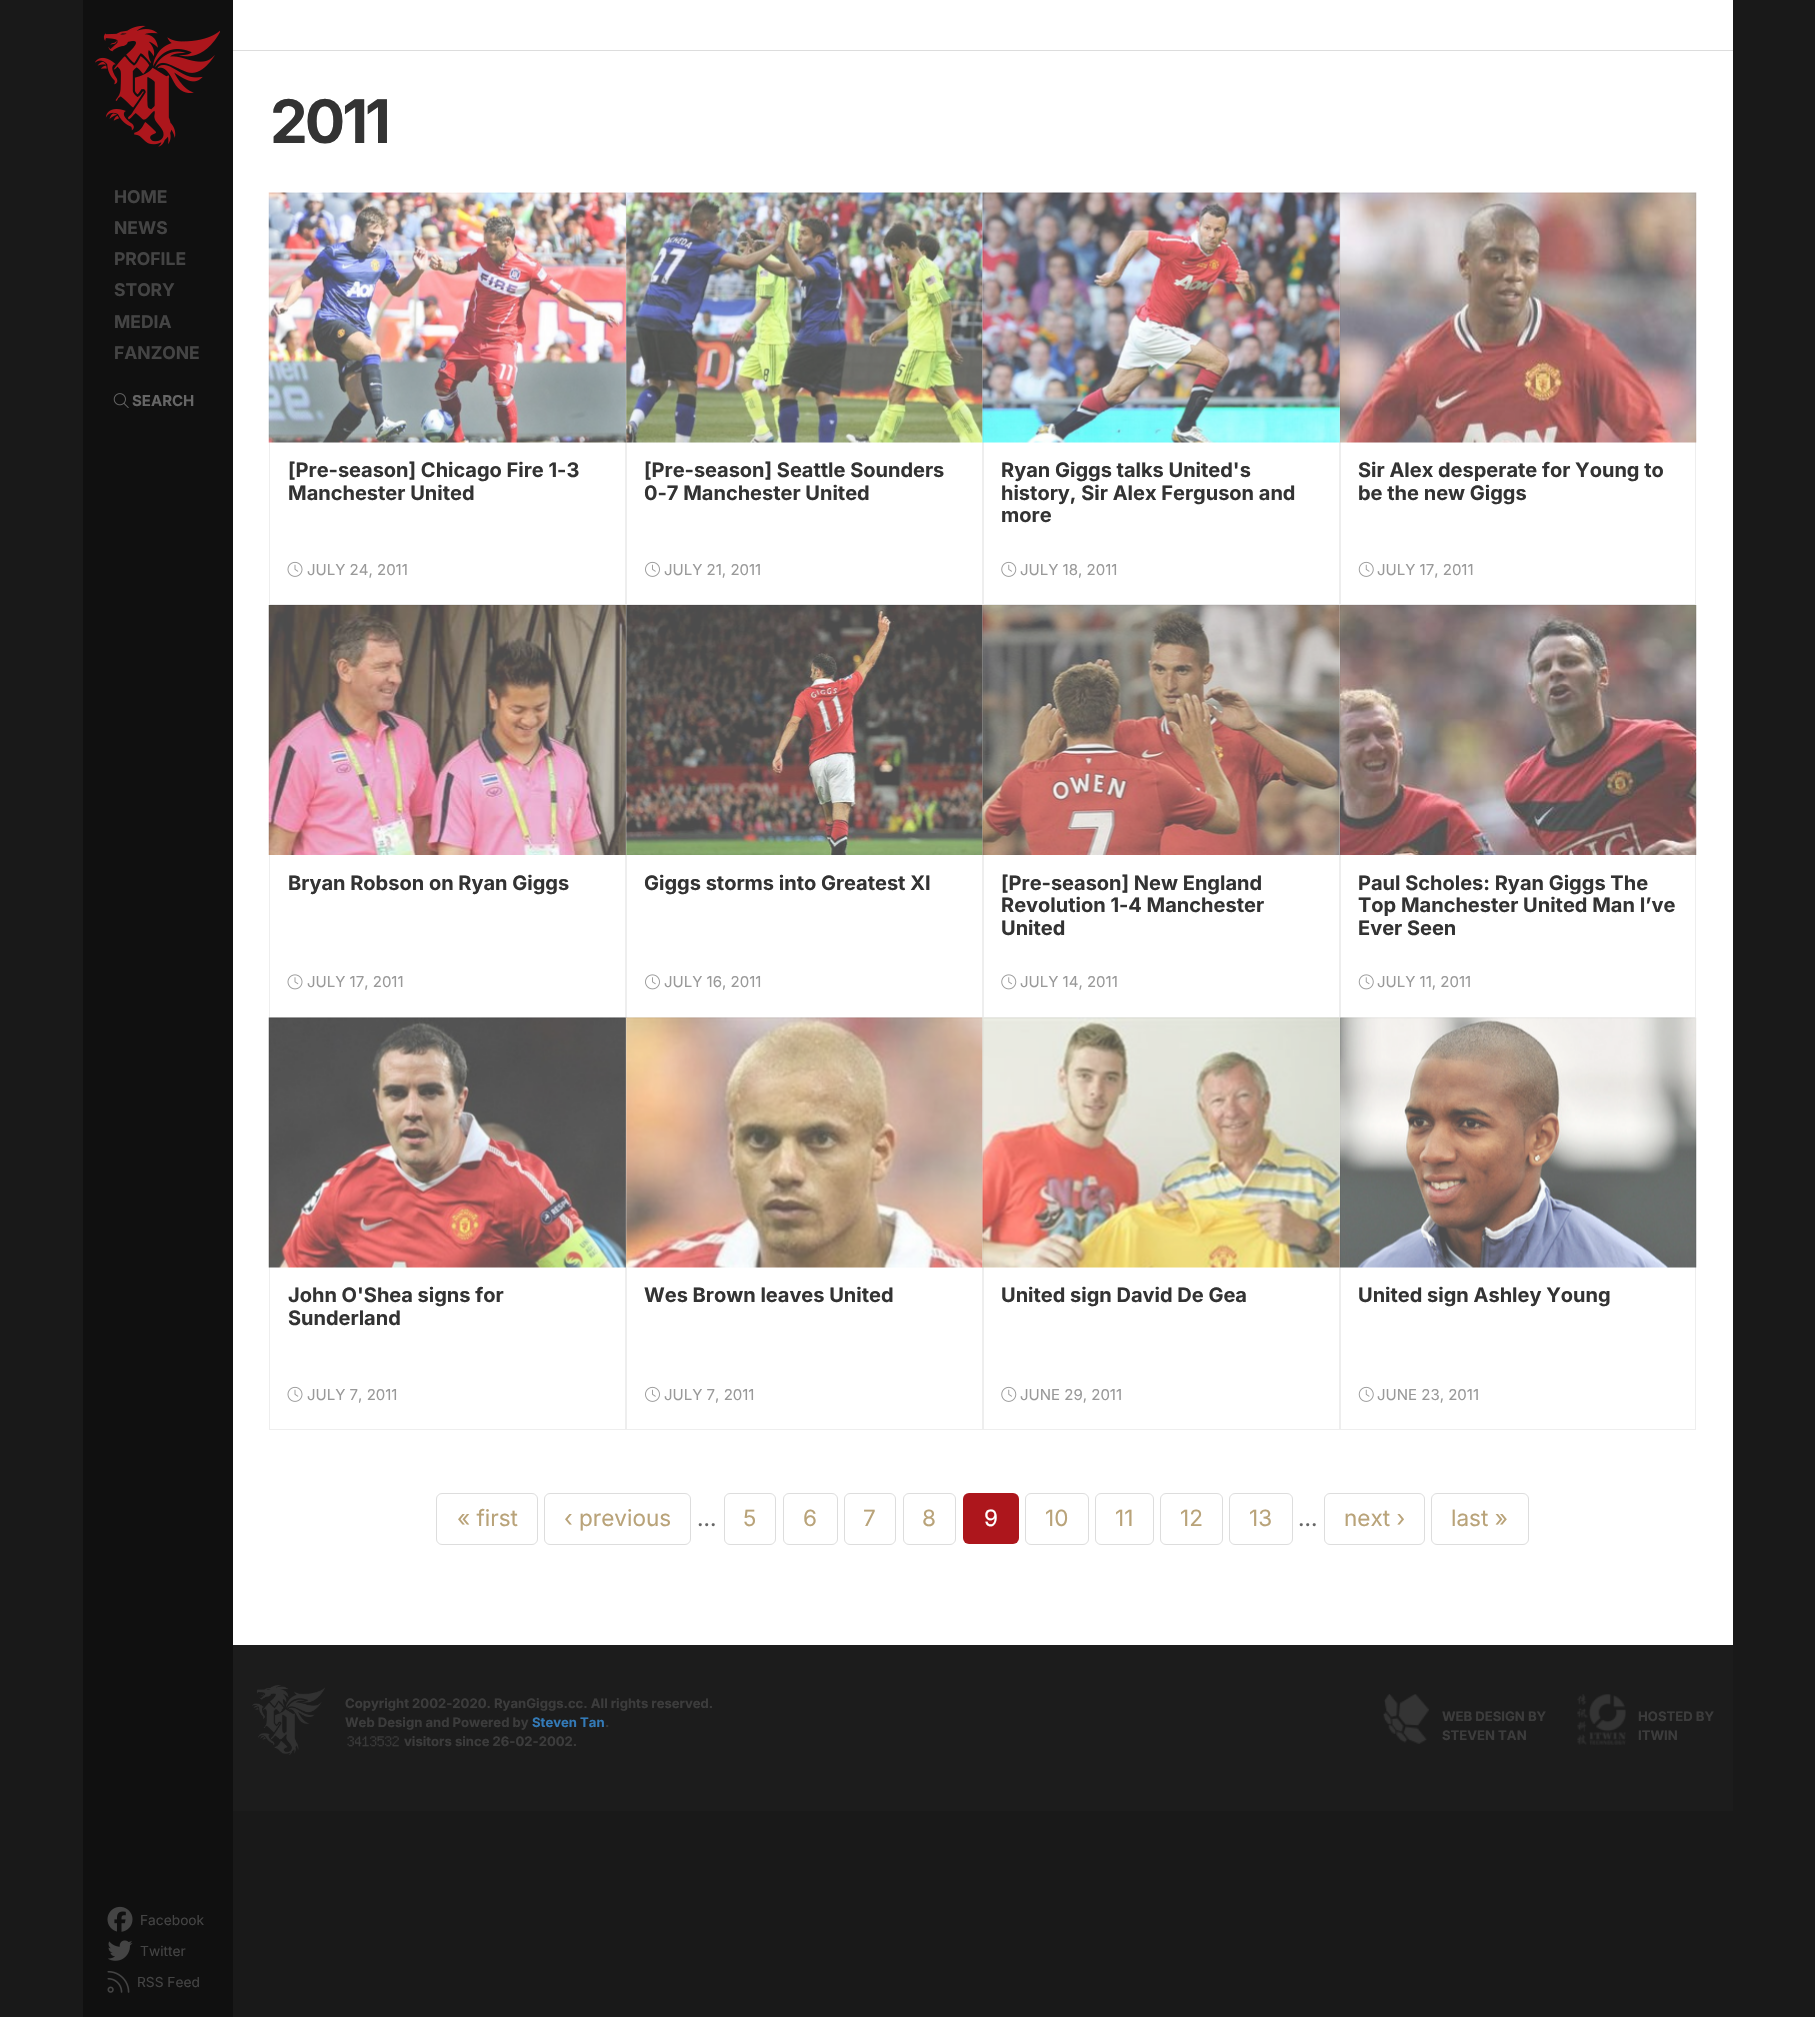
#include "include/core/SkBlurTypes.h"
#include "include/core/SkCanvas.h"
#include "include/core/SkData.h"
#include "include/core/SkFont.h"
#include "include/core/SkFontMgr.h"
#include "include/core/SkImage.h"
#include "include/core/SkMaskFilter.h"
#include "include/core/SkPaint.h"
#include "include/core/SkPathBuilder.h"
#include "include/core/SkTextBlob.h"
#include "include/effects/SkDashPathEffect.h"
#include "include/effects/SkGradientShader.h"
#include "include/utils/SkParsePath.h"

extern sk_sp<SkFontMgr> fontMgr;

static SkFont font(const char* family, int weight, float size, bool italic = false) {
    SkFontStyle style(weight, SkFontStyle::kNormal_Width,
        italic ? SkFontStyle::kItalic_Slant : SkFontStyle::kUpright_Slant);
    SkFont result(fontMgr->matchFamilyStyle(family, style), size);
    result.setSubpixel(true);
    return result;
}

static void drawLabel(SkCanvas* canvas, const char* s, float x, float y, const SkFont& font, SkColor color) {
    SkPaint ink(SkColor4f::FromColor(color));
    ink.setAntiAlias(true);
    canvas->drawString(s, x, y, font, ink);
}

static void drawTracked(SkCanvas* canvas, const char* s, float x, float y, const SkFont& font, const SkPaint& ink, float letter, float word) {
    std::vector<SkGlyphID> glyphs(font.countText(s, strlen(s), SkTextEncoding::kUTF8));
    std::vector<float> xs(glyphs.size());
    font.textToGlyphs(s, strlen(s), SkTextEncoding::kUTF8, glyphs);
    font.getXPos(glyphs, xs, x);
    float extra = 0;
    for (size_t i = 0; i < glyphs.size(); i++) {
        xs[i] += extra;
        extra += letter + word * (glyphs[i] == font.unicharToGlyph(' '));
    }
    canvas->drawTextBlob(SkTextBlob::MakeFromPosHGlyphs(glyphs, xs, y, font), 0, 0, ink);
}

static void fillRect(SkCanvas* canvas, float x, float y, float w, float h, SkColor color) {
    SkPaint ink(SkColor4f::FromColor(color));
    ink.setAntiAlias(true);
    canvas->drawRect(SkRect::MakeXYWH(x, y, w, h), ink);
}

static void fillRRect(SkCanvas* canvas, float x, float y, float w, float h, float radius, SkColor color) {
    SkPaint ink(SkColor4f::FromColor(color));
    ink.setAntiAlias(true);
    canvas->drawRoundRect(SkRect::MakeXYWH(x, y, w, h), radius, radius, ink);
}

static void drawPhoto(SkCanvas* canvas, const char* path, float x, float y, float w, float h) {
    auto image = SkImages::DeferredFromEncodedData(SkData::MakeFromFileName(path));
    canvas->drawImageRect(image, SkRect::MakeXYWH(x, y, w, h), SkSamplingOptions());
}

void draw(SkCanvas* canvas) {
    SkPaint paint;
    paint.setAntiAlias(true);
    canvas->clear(0xFF191919);
    fillRect(canvas, 83, 0, 150, 2017, 0xFF101010);
    drawPhoto(canvas, "assets/img1.png", 95, 25, 125, 122);
    SkFont font1 = font("Inter", 700, 17.5f);
    drawLabel(canvas, "HOME", 114, 203, font1, 0xFF444444);
    drawLabel(canvas, "NEWS", 114, 234, font1, 0xFF444444);
    drawLabel(canvas, "PROFILE", 114, 265, font1, 0xFF444444);
    drawLabel(canvas, "STORY", 114, 296, font1, 0xFF444444);
    drawLabel(canvas, "MEDIA", 114, 328, font1, 0xFF444444);
    drawLabel(canvas, "FANZONE", 114, 359, font1, 0xFF444444);
    drawPhoto(canvas, "assets/img2.png", 107, 1906, 26, 26);
    SkFont font2 = font("Inter", 400, 13.75f);
    drawLabel(canvas, "Facebook", 140, 1925, font2, 0xFF444444);
    drawPhoto(canvas, "assets/img3.png", 108, 1940, 25, 21);
    drawLabel(canvas, "Twitter", 140, 1956, font2, 0xFF444444);
    drawPhoto(canvas, "assets/img4.png", 107, 1971, 23, 22);
    drawLabel(canvas, "RSS Feed", 137, 1987, font2, 0xFF444444);
    drawPhoto(canvas, "assets/img5.png", 113, 393, 16, 15);
    SkFont font3 = font("Inter", 700, 15);
    drawLabel(canvas, "SEARCH", 132, 406, font3, 0xFF666666);
    fillRect(canvas, 233, 0, 1500, 1645, 0xFFFFFFFF);
    fillRect(canvas, 233, 50, 1500, 1, 0xFFDDDDDD);
    SkFont font4 = font("Inter", 700, 60);
    paint.setColor(0xFF333333);
    drawTracked(canvas, "2011", 270, 143, font4, paint, -3, 0);
    paint.setStroke(true);
    paint.setStrokeWidth(1);
    paint.setColor(0xFFEEEEEE);
    canvas->drawRect(SkRect::MakeXYWH(269.5f, 193.5f, 356, 411), paint);
    drawPhoto(canvas, "assets/img6.png", 268, 192, 359, 251);
    SkFont font5 = font("Inter", 700, 20);
    drawLabel(canvas, "[Pre-season] Chicago Fire 1-3", 288, 477, font5, 0xFF333333);
    drawLabel(canvas, "Manchester United", 288, 500, font5, 0xFF333333);
    drawPhoto(canvas, "assets/img7.png", 287, 561, 16, 16);
    SkFont font6 = font("Inter", 400, 15);
    drawLabel(canvas, "JULY 24, 2011", 307, 575, font6, 0xFF999999);
    canvas->drawRect(SkRect::MakeXYWH(626.5f, 193.5f, 356, 411), paint);
    drawPhoto(canvas, "assets/img8.png", 626, 192, 357, 251);
    drawLabel(canvas, "[Pre-season] Seattle Sounders", 644, 477, font5, 0xFF333333);
    drawLabel(canvas, "0-7 Manchester United", 644, 500, font5, 0xFF333333);
    drawPhoto(canvas, "assets/img9.png", 645, 561, 15, 16);
    drawLabel(canvas, "JULY 21, 2011", 664, 575, font6, 0xFF999999);
    canvas->drawRect(SkRect::MakeXYWH(983.5f, 193.5f, 356, 411), paint);
    drawPhoto(canvas, "assets/img10.png", 982, 192, 358, 251);
    drawLabel(canvas, "Ryan Giggs talks United's", 1001, 477, font5, 0xFF333333);
    drawLabel(canvas, "history, Sir Alex Ferguson and", 1001, 500, font5, 0xFF333333);
    drawLabel(canvas, "more", 1001, 522, font5, 0xFF333333);
    drawPhoto(canvas, "assets/img11.png", 1001, 561, 16, 16);
    drawLabel(canvas, "JULY 18, 2011", 1020, 575, font6, 0xFF999999);
    canvas->drawRect(SkRect::MakeXYWH(1340.5f, 193.5f, 355, 411), paint);
    drawPhoto(canvas, "assets/img12.png", 1340, 192, 357, 251);
    drawLabel(canvas, "Sir Alex desperate for Young to", 1358, 477, font5, 0xFF333333);
    drawLabel(canvas, "be the new Giggs", 1358, 500, font5, 0xFF333333);
    drawPhoto(canvas, "assets/img13.png", 1358, 561, 16, 16);
    drawLabel(canvas, "JULY 17, 2011", 1377, 575, font6, 0xFF999999);
    canvas->drawRect(SkRect::MakeXYWH(269.5f, 605.5f, 356, 412), paint);
    drawPhoto(canvas, "assets/img14.png", 268, 605, 358, 250);
    drawLabel(canvas, "Bryan Robson on Ryan Giggs", 288, 890, font5, 0xFF333333);
    drawPhoto(canvas, "assets/img15.png", 287, 974, 16, 16);
    drawLabel(canvas, "JULY 17, 2011", 307, 987, font6, 0xFF999999);
    canvas->drawRect(SkRect::MakeXYWH(626.5f, 605.5f, 356, 412), paint);
    drawPhoto(canvas, "assets/img16.png", 626, 605, 357, 250);
    drawLabel(canvas, "Giggs storms into Greatest XI", 644, 890, font5, 0xFF333333);
    drawPhoto(canvas, "assets/img17.png", 645, 974, 15, 16);
    drawLabel(canvas, "JULY 16, 2011", 664, 987, font6, 0xFF999999);
    canvas->drawRect(SkRect::MakeXYWH(983.5f, 605.5f, 356, 412), paint);
    drawPhoto(canvas, "assets/img18.png", 982, 605, 358, 250);
    drawLabel(canvas, "[Pre-season] New England", 1001, 890, font5, 0xFF333333);
    drawLabel(canvas, "Revolution 1-4 Manchester", 1001, 912, font5, 0xFF333333);
    drawLabel(canvas, "United", 1001, 935, font5, 0xFF333333);
    drawPhoto(canvas, "assets/img19.png", 1001, 974, 16, 16);
    drawLabel(canvas, "JULY 14, 2011", 1020, 987, font6, 0xFF999999);
    canvas->drawRect(SkRect::MakeXYWH(1340.5f, 605.5f, 355, 412), paint);
    drawPhoto(canvas, "assets/img20.png", 1340, 605, 357, 250);
    drawLabel(canvas, "Paul Scholes: Ryan Giggs The", 1358, 890, font5, 0xFF333333);
    drawLabel(canvas, "Top Manchester United Man I’ve", 1358, 912, font5, 0xFF333333);
    drawLabel(canvas, "Ever Seen", 1358, 935, font5, 0xFF333333);
    drawPhoto(canvas, "assets/img21.png", 1358, 974, 16, 16);
    drawLabel(canvas, "JULY 11, 2011", 1377, 987, font6, 0xFF999999);
    canvas->drawRect(SkRect::MakeXYWH(269.5f, 1018.5f, 356, 411), paint);
    drawPhoto(canvas, "assets/img22.png", 268, 1017, 359, 251);
    drawLabel(canvas, "John O'Shea signs for", 288, 1302, font5, 0xFF333333);
    drawLabel(canvas, "Sunderland", 288, 1325, font5, 0xFF333333);
    drawPhoto(canvas, "assets/img7.png", 287, 1386, 16, 16);
    drawLabel(canvas, "JULY 7, 2011", 307, 1400, font6, 0xFF999999);
    canvas->drawRect(SkRect::MakeXYWH(626.5f, 1018.5f, 356, 411), paint);
    drawPhoto(canvas, "assets/img23.png", 626, 1017, 357, 251);
    drawLabel(canvas, "Wes Brown leaves United", 644, 1302, font5, 0xFF333333);
    drawPhoto(canvas, "assets/img9.png", 645, 1386, 15, 16);
    drawLabel(canvas, "JULY 7, 2011", 664, 1400, font6, 0xFF999999);
    canvas->drawRect(SkRect::MakeXYWH(983.5f, 1018.5f, 356, 411), paint);
    drawPhoto(canvas, "assets/img24.png", 982, 1017, 358, 251);
    drawLabel(canvas, "United sign David De Gea", 1001, 1302, font5, 0xFF333333);
    drawPhoto(canvas, "assets/img11.png", 1001, 1386, 16, 16);
    drawLabel(canvas, "JUNE 29, 2011", 1020, 1400, font6, 0xFF999999);
    canvas->drawRect(SkRect::MakeXYWH(1340.5f, 1018.5f, 355, 411), paint);
    drawPhoto(canvas, "assets/img25.png", 1340, 1017, 357, 251);
    drawLabel(canvas, "United sign Ashley Young", 1358, 1302, font5, 0xFF333333);
    drawPhoto(canvas, "assets/img13.png", 1358, 1386, 16, 16);
    drawLabel(canvas, "JUNE 23, 2011", 1377, 1400, font6, 0xFF999999);
    paint.setColor(0xFFDDDDDD);
    canvas->drawRoundRect(SkRect::MakeXYWH(436.5f, 1493.5f, 101, 51), 5.5f, 5.5f, paint);
    SkFont font7 = font("Inter", 400, 22.5f);
    drawLabel(canvas, "« first", 457, 1526, font7, 0xFFB9A379);
    canvas->drawRoundRect(SkRect::MakeXYWH(544.5f, 1493.5f, 146, 51), 5.5f, 5.5f, paint);
    drawLabel(canvas, "‹ previous", 564, 1526, font7, 0xFFB9A379);
    drawLabel(canvas, "…", 697, 1526, font7, 0xFF666666);
    canvas->drawRoundRect(SkRect::MakeXYWH(724.5f, 1493.5f, 51, 51), 5.5f, 5.5f, paint);
    drawLabel(canvas, "5", 743, 1526, font7, 0xFFB9A379);
    canvas->drawRoundRect(SkRect::MakeXYWH(783.5f, 1493.5f, 54, 51), 5.5f, 5.5f, paint);
    drawLabel(canvas, "6", 803, 1526, font7, 0xFFB9A379);
    canvas->drawRoundRect(SkRect::MakeXYWH(844.5f, 1493.5f, 51, 51), 5.5f, 5.5f, paint);
    drawLabel(canvas, "7", 863, 1526, font7, 0xFFB9A379);
    canvas->drawRoundRect(SkRect::MakeXYWH(903.5f, 1493.5f, 52, 51), 5.5f, 5.5f, paint);
    drawLabel(canvas, "8", 922, 1526, font7, 0xFFB9A379);
    fillRRect(canvas, 963, 1493, 56, 51, 6, 0xFFAD161C);
    drawLabel(canvas, "9", 984, 1526, font7, 0xFFFFFFFF);
    canvas->drawRoundRect(SkRect::MakeXYWH(1025.5f, 1493.5f, 63, 51), 5.5f, 5.5f, paint);
    drawLabel(canvas, "10", 1045, 1526, font7, 0xFFB9A379);
    canvas->drawRoundRect(SkRect::MakeXYWH(1095.5f, 1493.5f, 58, 51), 5.5f, 5.5f, paint);
    drawLabel(canvas, "11", 1115, 1526, font7, 0xFFB9A379);
    canvas->drawRoundRect(SkRect::MakeXYWH(1160.5f, 1493.5f, 62, 51), 5.5f, 5.5f, paint);
    drawLabel(canvas, "12", 1180, 1526, font7, 0xFFB9A379);
    canvas->drawRoundRect(SkRect::MakeXYWH(1229.5f, 1493.5f, 63, 51), 5.5f, 5.5f, paint);
    drawLabel(canvas, "13", 1249, 1526, font7, 0xFFB9A379);
    drawLabel(canvas, "…", 1298, 1526, font7, 0xFF666666);
    canvas->drawRoundRect(SkRect::MakeXYWH(1324.5f, 1493.5f, 100, 51), 5.5f, 5.5f, paint);
    drawLabel(canvas, "next ›", 1344, 1526, font7, 0xFFB9A379);
    canvas->drawRoundRect(SkRect::MakeXYWH(1431.5f, 1493.5f, 97, 51), 5.5f, 5.5f, paint);
    drawLabel(canvas, "last »", 1451, 1526, font7, 0xFFB9A379);
    fillRect(canvas, 233, 1645, 1500, 166, 0xFF1C1C1C);
    drawPhoto(canvas, "assets/img26.png", 252, 1685, 73, 70);
    SkFont font8 = font("Inter", 700, 13.1f);
    drawLabel(canvas, "Copyright 2002-2020. RyanGiggs.cc. All rights reserved.", 345, 1708, font8, 0xFF3C3C3C);
    drawLabel(canvas, "Web Design and Powered by", 345, 1727, font8, 0xFF3C3C3C);
    drawLabel(canvas, "Steven Tan", 532, 1727, font8, 0xFF337AB7);
    drawLabel(canvas, ".", 605, 1727, font8, 0xFF3C3C3C);
    drawPhoto(canvas, "assets/img27.png", 347, 1736, 52, 11);
    drawLabel(canvas, "visitors since 26-02-2002.", 404, 1746, font8, 0xFF3C3C3C);
    drawPhoto(canvas, "assets/img28.png", 1383, 1694, 46, 50);
    drawLabel(canvas, "WEB DESIGN BY", 1442, 1721, font8, 0xFF3C3C3C);
    drawLabel(canvas, "STEVEN TAN", 1442, 1740, font8, 0xFF3C3C3C);
    drawPhoto(canvas, "assets/img29.png", 1577, 1694, 49, 51);
    drawLabel(canvas, "HOSTED BY", 1638, 1721, font8, 0xFF3C3C3C);
    drawLabel(canvas, "ITWIN", 1638, 1740, font8, 0xFF3C3C3C);
}
